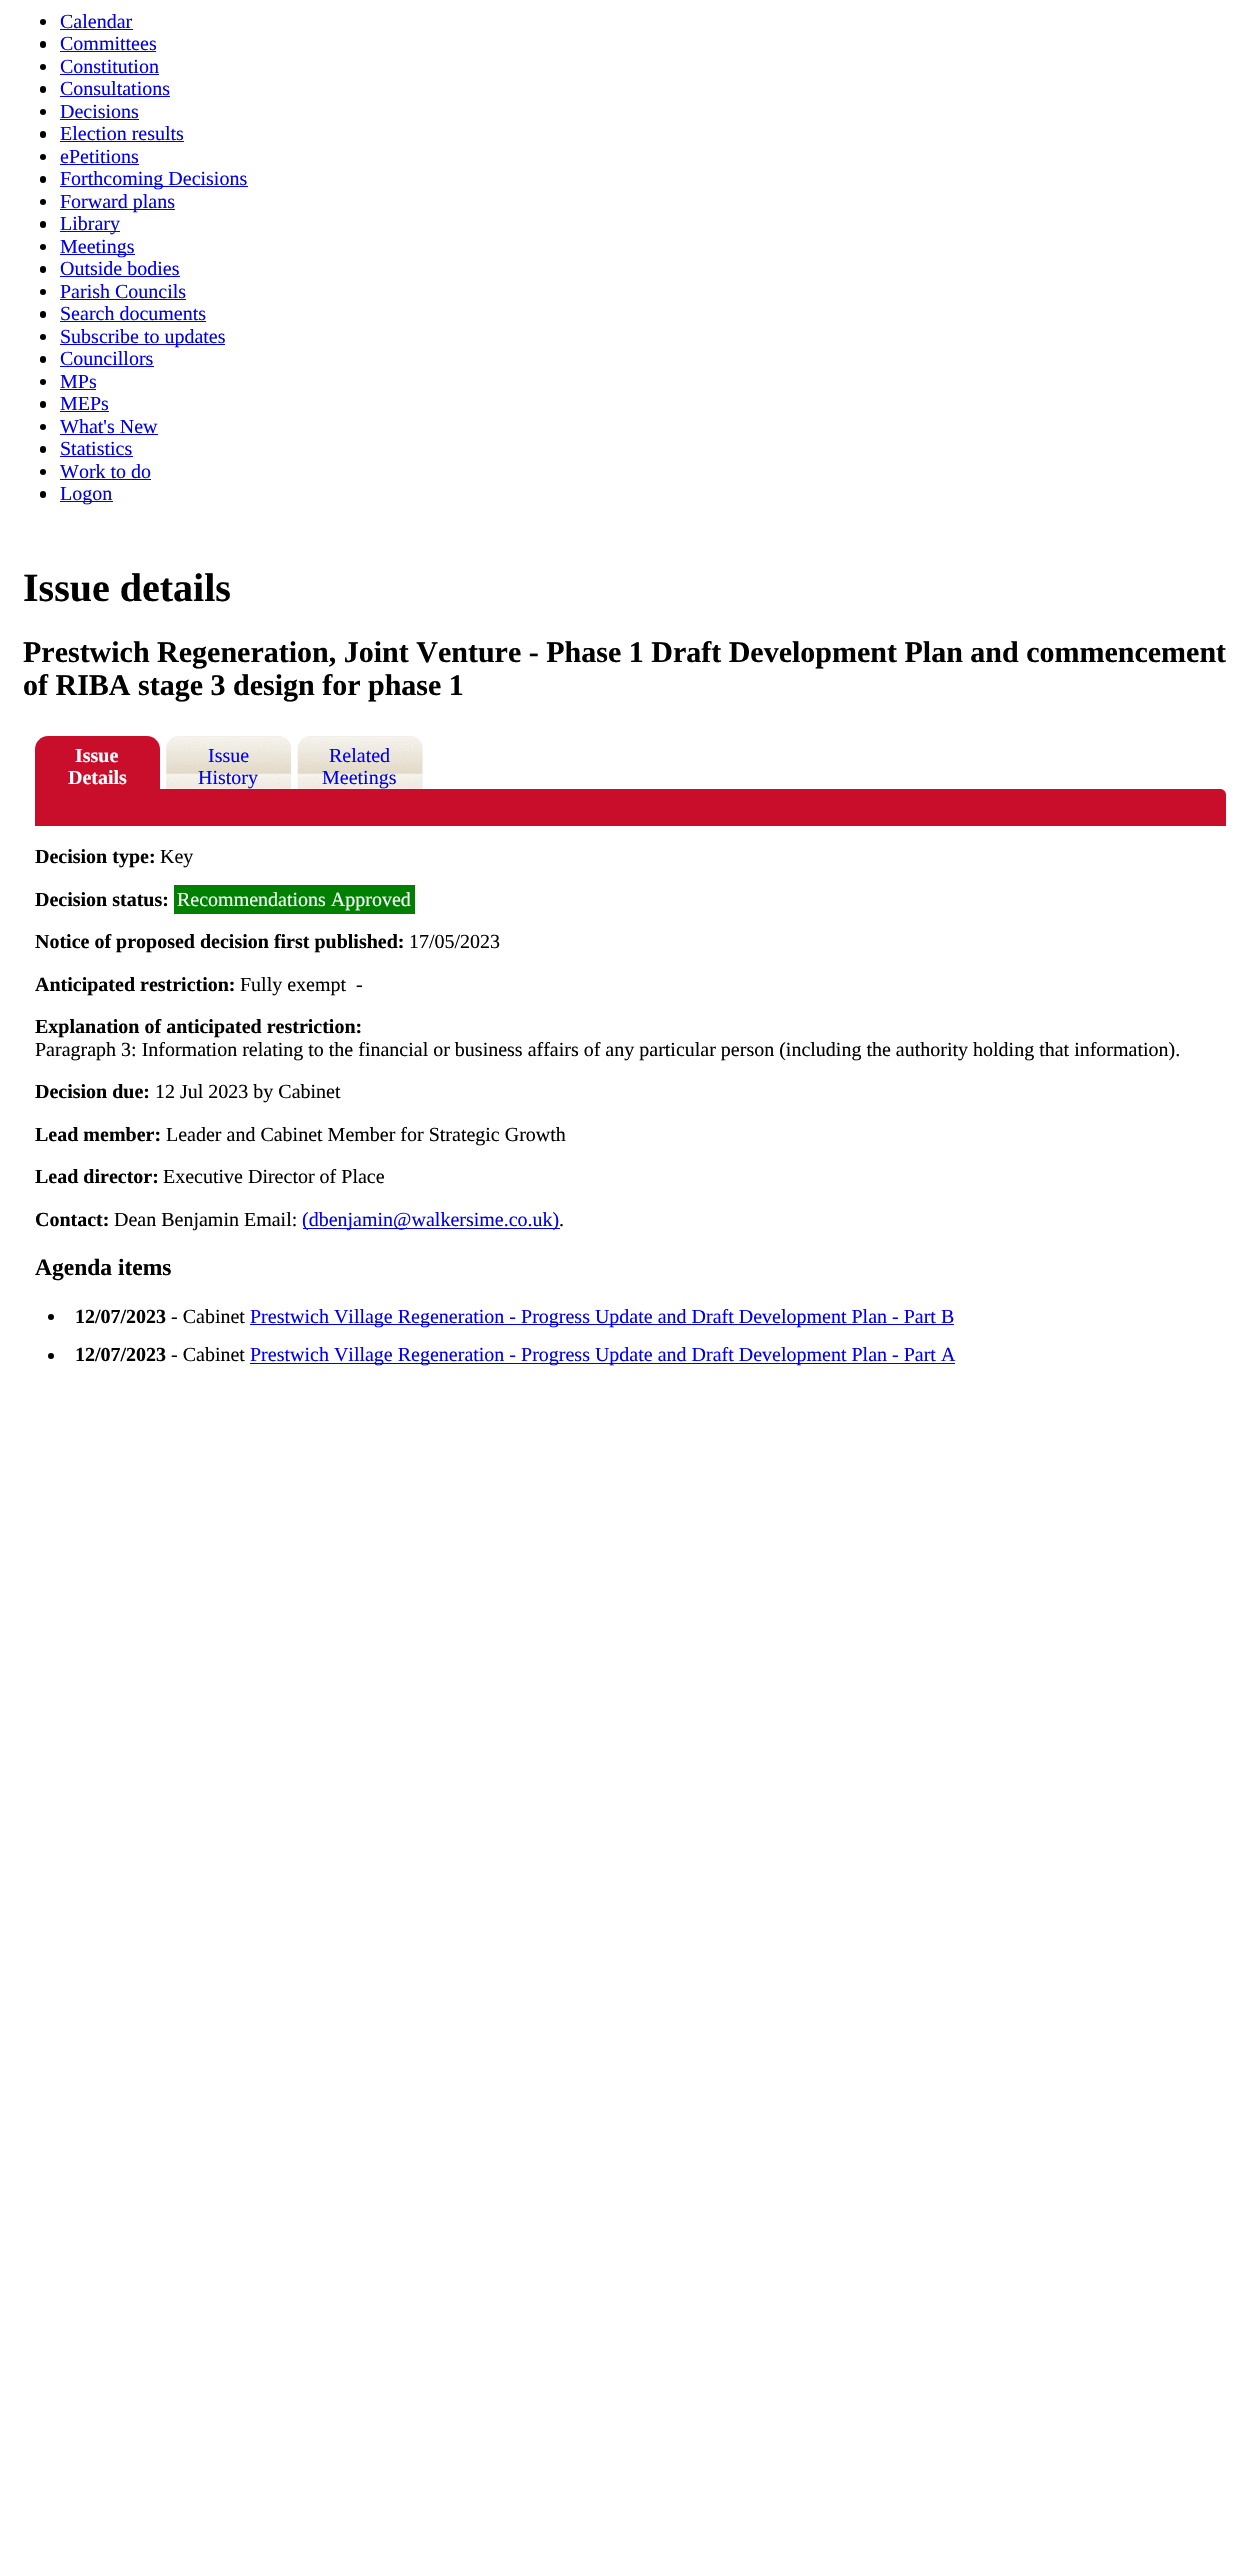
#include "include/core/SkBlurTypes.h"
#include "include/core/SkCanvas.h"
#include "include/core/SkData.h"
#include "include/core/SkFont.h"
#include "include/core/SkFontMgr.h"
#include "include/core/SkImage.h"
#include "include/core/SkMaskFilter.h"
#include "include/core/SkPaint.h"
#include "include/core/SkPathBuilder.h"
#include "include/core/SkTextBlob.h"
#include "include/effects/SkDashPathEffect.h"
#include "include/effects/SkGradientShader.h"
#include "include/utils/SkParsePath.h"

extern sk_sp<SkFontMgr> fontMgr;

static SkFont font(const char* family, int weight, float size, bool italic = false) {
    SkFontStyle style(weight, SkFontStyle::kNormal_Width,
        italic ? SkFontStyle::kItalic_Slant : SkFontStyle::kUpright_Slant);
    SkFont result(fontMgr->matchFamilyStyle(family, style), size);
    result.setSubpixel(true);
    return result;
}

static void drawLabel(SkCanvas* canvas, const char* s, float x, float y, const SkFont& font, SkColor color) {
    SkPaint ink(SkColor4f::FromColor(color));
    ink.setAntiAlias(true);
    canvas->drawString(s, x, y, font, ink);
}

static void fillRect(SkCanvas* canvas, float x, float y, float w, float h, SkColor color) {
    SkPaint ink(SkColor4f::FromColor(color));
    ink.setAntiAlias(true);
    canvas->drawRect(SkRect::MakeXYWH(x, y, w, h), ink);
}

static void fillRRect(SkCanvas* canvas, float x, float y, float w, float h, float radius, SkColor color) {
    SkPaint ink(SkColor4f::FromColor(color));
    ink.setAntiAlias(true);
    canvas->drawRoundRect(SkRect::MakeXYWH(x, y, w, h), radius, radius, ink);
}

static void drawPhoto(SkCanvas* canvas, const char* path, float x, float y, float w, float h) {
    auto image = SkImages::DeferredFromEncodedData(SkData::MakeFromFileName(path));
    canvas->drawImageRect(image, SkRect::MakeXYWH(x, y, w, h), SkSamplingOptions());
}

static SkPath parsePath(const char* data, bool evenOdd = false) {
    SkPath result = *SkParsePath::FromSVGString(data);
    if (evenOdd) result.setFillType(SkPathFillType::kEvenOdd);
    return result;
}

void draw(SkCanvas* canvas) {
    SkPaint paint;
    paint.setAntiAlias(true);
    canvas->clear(0xFFFFFFFF);
    paint.setColor(0xFF000000);
    canvas->drawCircle(43, 22, 3, paint);
    SkFont font1 = font("Liberation Serif", 400, 20);
    drawLabel(canvas, "Calendar", 60, 28, font1, 0xFF0000EE);
    fillRect(canvas, 60, 29, 73, 1, 0xFF0000EE);
    fillRRect(canvas, 40, 41, 6, 7, 3, 0xFF000000);
    drawLabel(canvas, "Committees", 60, 50, font1, 0xFF0000EE);
    fillRect(canvas, 60, 51, 96, 1, 0xFF0000EE);
    canvas->drawCircle(43, 67, 3, paint);
    drawLabel(canvas, "Constitution", 60, 73, font1, 0xFF0000EE);
    fillRect(canvas, 60, 74, 99, 1, 0xFF0000EE);
    fillRRect(canvas, 40, 86, 6, 7, 3, 0xFF000000);
    drawLabel(canvas, "Consultations", 60, 95, font1, 0xFF0000EE);
    fillRect(canvas, 60, 96, 110, 1, 0xFF0000EE);
    canvas->drawCircle(43, 112, 3, paint);
    drawLabel(canvas, "Decisions", 60, 118, font1, 0xFF0000EE);
    fillRect(canvas, 60, 119, 79, 1, 0xFF0000EE);
    fillRRect(canvas, 40, 131, 6, 7, 3, 0xFF000000);
    drawLabel(canvas, "Election results", 60, 140, font1, 0xFF0000EE);
    fillRect(canvas, 60, 141, 124, 1, 0xFF0000EE);
    canvas->drawCircle(43, 157, 3, paint);
    drawLabel(canvas, "ePetitions", 60, 163, font1, 0xFF0000EE);
    fillRect(canvas, 60, 164, 79, 1, 0xFF0000EE);
    fillRRect(canvas, 40, 176, 6, 7, 3, 0xFF000000);
    fillRect(canvas, 60, 186, 188, 1, 0xFF0000EE);
    drawLabel(canvas, "Forthcoming Decisions", 60, 185, font1, 0xFF0000EE);
    canvas->drawCircle(43, 202, 3, paint);
    fillRect(canvas, 60, 209, 115, 1, 0xFF0000EE);
    drawLabel(canvas, "Forward plans", 60, 208, font1, 0xFF0000EE);
    fillRRect(canvas, 40, 221, 6, 7, 3, 0xFF000000);
    fillRect(canvas, 60, 231, 60, 1, 0xFF0000EE);
    drawLabel(canvas, "Library", 60, 230, font1, 0xFF0000EE);
    canvas->drawCircle(43, 247, 3, paint);
    fillRect(canvas, 60, 254, 75, 1, 0xFF0000EE);
    drawLabel(canvas, "Meetings", 60, 253, font1, 0xFF0000EE);
    fillRRect(canvas, 40, 266, 6, 7, 3, 0xFF000000);
    drawLabel(canvas, "Outside bodies", 60, 275, font1, 0xFF0000EE);
    fillRect(canvas, 60, 276, 120, 1, 0xFF0000EE);
    canvas->drawCircle(43, 292, 3, paint);
    drawLabel(canvas, "Parish Councils", 60, 298, font1, 0xFF0000EE);
    fillRect(canvas, 60, 299, 126, 1, 0xFF0000EE);
    fillRRect(canvas, 40, 311, 6, 7, 3, 0xFF000000);
    drawLabel(canvas, "Search documents", 60, 320, font1, 0xFF0000EE);
    fillRect(canvas, 60, 321, 146, 1, 0xFF0000EE);
    canvas->drawCircle(43, 337, 3, paint);
    fillRect(canvas, 60, 344, 165, 1, 0xFF0000EE);
    drawLabel(canvas, "Subscribe to updates", 60, 343, font1, 0xFF0000EE);
    fillRRect(canvas, 40, 356, 6, 7, 3, 0xFF000000);
    drawLabel(canvas, "Councillors", 60, 365, font1, 0xFF0000EE);
    fillRect(canvas, 60, 366, 94, 1, 0xFF0000EE);
    canvas->drawCircle(43, 382, 3, paint);
    drawLabel(canvas, "MPs", 60, 388, font1, 0xFF0000EE);
    fillRect(canvas, 60, 389, 36, 1, 0xFF0000EE);
    fillRRect(canvas, 40, 401, 6, 7, 3, 0xFF000000);
    drawLabel(canvas, "MEPs", 60, 410, font1, 0xFF0000EE);
    fillRect(canvas, 60, 411, 49, 1, 0xFF0000EE);
    canvas->drawCircle(43, 427, 3, paint);
    drawLabel(canvas, "What's New", 60, 433, font1, 0xFF0000EE);
    fillRect(canvas, 60, 434, 98, 1, 0xFF0000EE);
    fillRRect(canvas, 40, 446, 6, 7, 3, 0xFF000000);
    drawLabel(canvas, "Statistics", 60, 455, font1, 0xFF0000EE);
    fillRect(canvas, 60, 456, 73, 1, 0xFF0000EE);
    canvas->drawCircle(43, 472, 3, paint);
    drawLabel(canvas, "Work to do", 60, 478, font1, 0xFF0000EE);
    fillRect(canvas, 60, 479, 91, 1, 0xFF0000EE);
    fillRRect(canvas, 40, 491, 6, 7, 3, 0xFF000000);
    fillRect(canvas, 60, 501, 53, 1, 0xFF0000EE);
    drawLabel(canvas, "Logon", 60, 500, font1, 0xFF0000EE);
    SkFont font2 = font("Liberation Serif", 700, 40);
    drawLabel(canvas, "Issue details", 23, 601, font2, 0xFF000000);
    SkFont font3 = font("Liberation Serif", 700, 30);
    drawLabel(canvas, "Prestwich Regeneration, Joint Venture - Phase 1 Draft Development Plan and commencement", 23, 662, font3, 0xFF000000);
    drawLabel(canvas, "of RIBA stage 3 design for phase 1", 23, 695, font3, 0xFF000000);
    paint.setColor(0xFFC90E2B);
    canvas->drawPath(parsePath("M48 736H147C154 736 160 742 160 749V789H35V749C35 742 41 736 48 736Z"), paint);
    SkFont font4 = font("Liberation Serif", 700, 20);
    drawLabel(canvas, "Issue", 75, 762, font4, 0xFFFFFFFF);
    drawLabel(canvas, "Details", 68, 784, font4, 0xFFFFFFFF);
    paint.setColor(0xFFF3F3F3);
    canvas->drawPath(parsePath("M179 736H278C285 736 291 742 291 749V789H166V749C166 742 172 736 179 736Z"), paint);
    drawPhoto(canvas, "assets/img1.png", 166, 736, 125, 53);
    drawLabel(canvas, "Issue", 208, 762, font1, 0xFF0000EE);
    drawLabel(canvas, "History", 198, 784, font1, 0xFF0000EE);
    canvas->drawPath(parsePath("M311 736H410C417 736 423 742 423 749V789H298V749C298 742 304 736 311 736Z"), paint);
    drawPhoto(canvas, "assets/img2.png", 297, 736, 126, 53);
    drawLabel(canvas, "Related", 329, 762, font1, 0xFF0000EE);
    drawLabel(canvas, "Meetings", 322, 784, font1, 0xFF0000EE);
    paint.setColor(0xFFC90E2B);
    canvas->drawPath(parsePath("M35 789H1220C1223.5 789 1226 791.5 1226 795V826H35Z"), paint);
    drawLabel(canvas, "Decision type:", 35, 863, font4, 0xFF000000);
    drawLabel(canvas, "Key", 160, 863, font1, 0xFF000000);
    drawLabel(canvas, "Decision status:", 35, 906, font4, 0xFF000000);
    fillRect(canvas, 174, 885, 241, 29, 0xFF008000);
    drawLabel(canvas, "Recommendations Approved", 177, 906, font1, 0xFFFFFFFF);
    drawLabel(canvas, "Notice of proposed decision first published:", 35, 948, font4, 0xFF000000);
    drawLabel(canvas, "17/05/2023", 409, 948, font1, 0xFF000000);
    drawLabel(canvas, "Anticipated restriction:", 35, 991, font4, 0xFF000000);
    drawLabel(canvas, "Fully exempt", 240, 991, font1, 0xFF000000);
    drawLabel(canvas, "-", 356, 991, font1, 0xFF000000);
    drawLabel(canvas, "Explanation of anticipated restriction:", 35, 1033, font4, 0xFF000000);
    drawLabel(canvas, "Paragraph 3: Information relating to the financial or business affairs of any particular person (including the authority holding that information).", 35, 1056, font1, 0xFF000000);
    drawLabel(canvas, "Decision due:", 35, 1098, font4, 0xFF000000);
    drawLabel(canvas, "12 Jul 2023 by Cabinet", 155, 1098, font1, 0xFF000000);
    drawLabel(canvas, "Lead member:", 35, 1141, font4, 0xFF000000);
    drawLabel(canvas, "Leader and Cabinet Member for Strategic Growth", 166, 1141, font1, 0xFF000000);
    drawLabel(canvas, "Lead director:", 35, 1183, font4, 0xFF000000);
    drawLabel(canvas, "Executive Director of Place", 163, 1183, font1, 0xFF000000);
    drawLabel(canvas, "Contact:", 35, 1226, font4, 0xFF000000);
    drawLabel(canvas, "Dean Benjamin Email:", 114, 1226, font1, 0xFF000000);
    fillRect(canvas, 303, 1228, 257, 1, 0xFF0000EE);
    drawLabel(canvas, "(dbenjamin@walkersime.co.uk)", 302, 1226, font1, 0xFF0000EE);
    drawLabel(canvas, ".", 559, 1226, font1, 0xFF000000);
    SkFont font5 = font("Liberation Serif", 700, 23.5f);
    drawLabel(canvas, "Agenda items", 35, 1275, font5, 0xFF000000);
    paint.setColor(0xFF000000);
    canvas->drawCircle(51, 1317, 3, paint);
    drawLabel(canvas, "12/07/2023", 75, 1323, font4, 0xFF000000);
    drawLabel(canvas, "- Cabinet", 171, 1323, font1, 0xFF000000);
    fillRect(canvas, 250, 1324, 704, 1, 0xFF0000EE);
    drawLabel(canvas, "Prestwich Village Regeneration - Progress Update and Draft Development Plan - Part B", 250, 1323, font1, 0xFF0000EE);
    canvas->drawCircle(51, 1356, 3, paint);
    drawLabel(canvas, "12/07/2023", 75, 1361, font4, 0xFF000000);
    drawLabel(canvas, "- Cabinet", 171, 1361, font1, 0xFF000000);
    fillRect(canvas, 250, 1363, 705, 1, 0xFF0000EE);
    drawLabel(canvas, "Prestwich Village Regeneration - Progress Update and Draft Development Plan - Part A", 250, 1361, font1, 0xFF0000EE);
}
